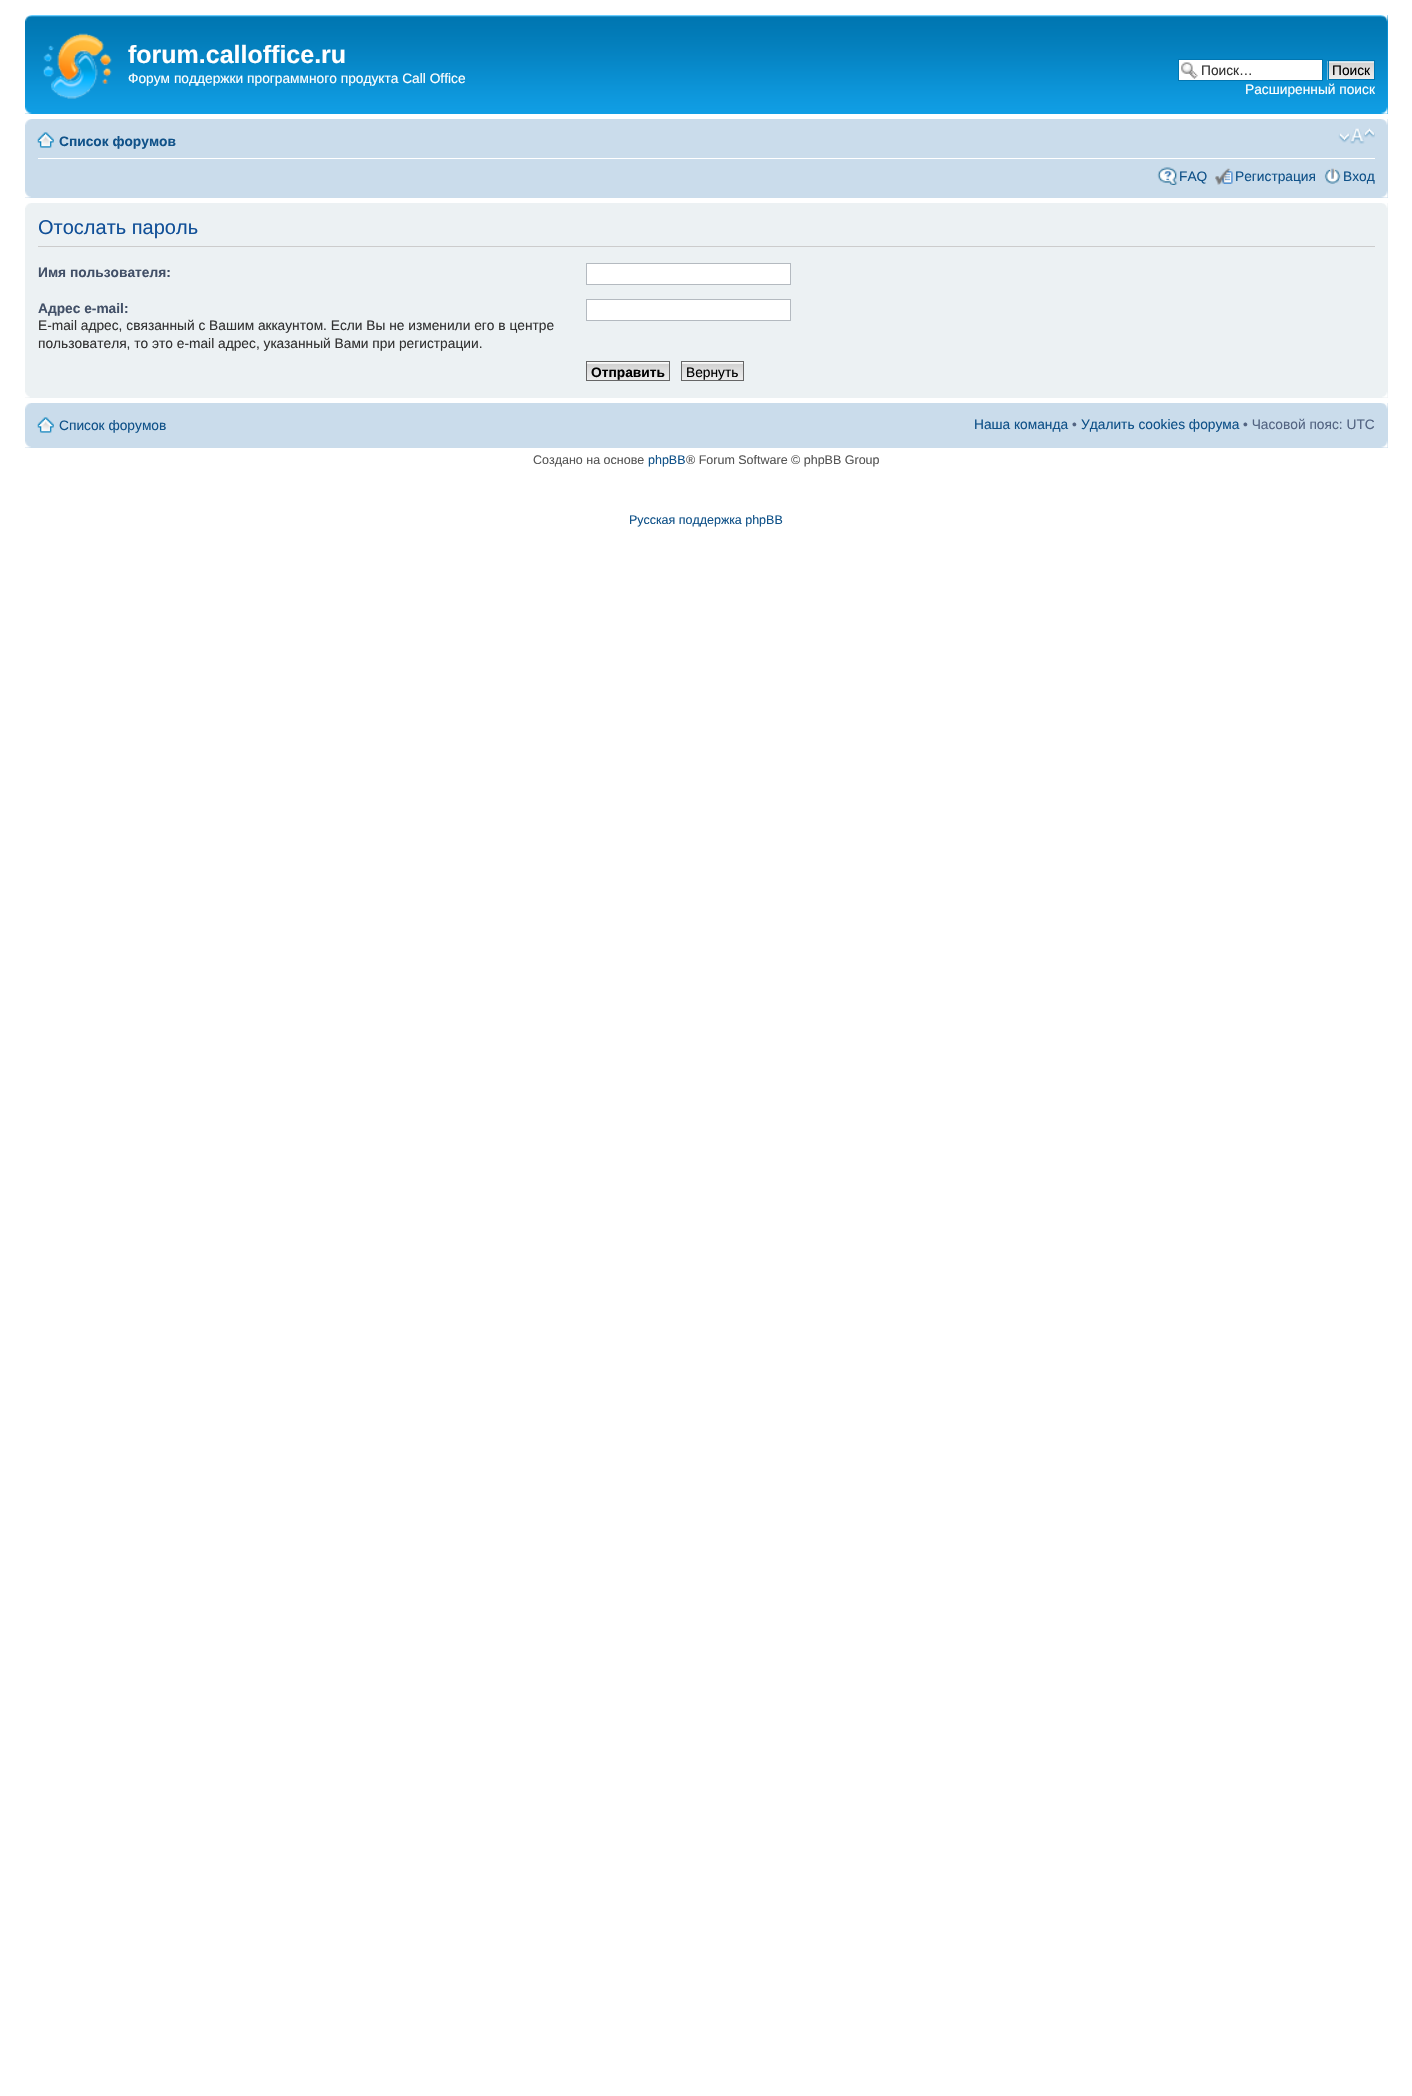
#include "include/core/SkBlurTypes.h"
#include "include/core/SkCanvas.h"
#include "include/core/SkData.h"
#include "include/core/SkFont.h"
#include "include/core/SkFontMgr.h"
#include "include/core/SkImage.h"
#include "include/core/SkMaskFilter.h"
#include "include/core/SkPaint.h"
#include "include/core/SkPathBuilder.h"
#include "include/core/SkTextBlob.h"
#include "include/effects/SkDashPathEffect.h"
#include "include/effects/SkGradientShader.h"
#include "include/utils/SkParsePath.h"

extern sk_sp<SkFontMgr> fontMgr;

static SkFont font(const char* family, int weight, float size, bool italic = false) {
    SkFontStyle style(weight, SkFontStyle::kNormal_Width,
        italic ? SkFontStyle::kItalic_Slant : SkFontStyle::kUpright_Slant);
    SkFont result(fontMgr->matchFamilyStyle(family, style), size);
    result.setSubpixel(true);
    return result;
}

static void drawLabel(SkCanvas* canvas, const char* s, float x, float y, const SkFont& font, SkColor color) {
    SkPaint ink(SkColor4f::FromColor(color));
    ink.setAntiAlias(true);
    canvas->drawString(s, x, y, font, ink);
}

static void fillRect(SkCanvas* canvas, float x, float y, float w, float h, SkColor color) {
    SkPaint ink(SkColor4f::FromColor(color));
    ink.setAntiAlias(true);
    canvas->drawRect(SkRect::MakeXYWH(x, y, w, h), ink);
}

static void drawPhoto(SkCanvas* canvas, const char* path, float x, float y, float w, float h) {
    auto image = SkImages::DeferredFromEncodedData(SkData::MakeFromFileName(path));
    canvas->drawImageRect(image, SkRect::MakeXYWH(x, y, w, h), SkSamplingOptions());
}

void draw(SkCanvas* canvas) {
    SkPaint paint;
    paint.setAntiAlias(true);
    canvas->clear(0xFFFFFFFF);
    fillRect(canvas, 25, 15, 1363, 99, 0xFF12A3EB);
    drawPhoto(canvas, "assets/img1.png", 25, 15, 1363, 99);
    drawPhoto(canvas, "assets/img2.png", 25, 15, 7, 7);
    drawPhoto(canvas, "assets/img3.png", 1381, 15, 7, 7);
    drawPhoto(canvas, "assets/img4.png", 43, 33, 69, 66);
    SkFont font1 = font("Liberation Sans", 700, 25);
    drawLabel(canvas, "forum.calloffice.ru", 128, 63, font1, 0xFFFFFFFF);
    SkFont font2 = font("Liberation Sans", 400, 13.75f);
    drawLabel(canvas, "Форум поддержки программного продукта Call Office", 128, 83, font2, 0xFFFFFFFF);
    fillRect(canvas, 1179, 60, 143, 20, 0xFFFFFFFF);
    drawPhoto(canvas, "assets/img5.png", 1181, 62, 17, 17);
    paint.setStroke(true);
    paint.setStrokeWidth(1);
    paint.setColor(0xFF0075B0);
    canvas->drawRect(SkRect::MakeXYWH(1178.5f, 59.5f, 144, 21), paint);
    drawLabel(canvas, "Поиск…", 1201, 75, font2, 0xFF333333);
    drawPhoto(canvas, "assets/img6.png", 1327, 61, 47, 19);
    canvas->drawRect(SkRect::MakeXYWH(1328.5f, 60.5f, 46, 19), paint);
    drawLabel(canvas, "Поиск", 1332, 75, font2, 0xFF000000);
    drawLabel(canvas, "Расширенный поиск", 1245, 94, font2, 0xFFFFFFFF);
    drawPhoto(canvas, "assets/img7.png", 25, 107, 7, 7);
    drawPhoto(canvas, "assets/img8.png", 1381, 107, 7, 7);
    fillRect(canvas, 25, 119, 1363, 79, 0xFFCADCEB);
    drawPhoto(canvas, "assets/img9.png", 25, 119, 7, 6);
    drawPhoto(canvas, "assets/img10.png", 1381, 119, 7, 6);
    fillRect(canvas, 38, 158, 1337, 1, 0xFFFFFFFF);
    drawPhoto(canvas, "assets/img11.png", 37, 132, 17, 16);
    SkFont font3 = font("Liberation Sans", 700, 13.75f);
    drawLabel(canvas, "Список форумов", 59, 146, font3, 0xFF105289);
    drawPhoto(canvas, "assets/img12.png", 1338, 128, 37, 16);
    drawPhoto(canvas, "assets/img13.png", 1157, 167, 21, 18);
    drawLabel(canvas, "FAQ", 1179, 181, font2, 0xFF105289);
    drawPhoto(canvas, "assets/img14.png", 1215, 168, 18, 17);
    drawLabel(canvas, "Регистрация", 1235, 181, font2, 0xFF105289);
    drawPhoto(canvas, "assets/img15.png", 1324, 168, 17, 16);
    drawLabel(canvas, "Вход", 1343, 181, font2, 0xFF105289);
    drawPhoto(canvas, "assets/img16.png", 25, 191, 6, 7);
    drawPhoto(canvas, "assets/img17.png", 1381, 191, 7, 7);
    fillRect(canvas, 25, 203, 1363, 195, 0xFFECF1F3);
    drawPhoto(canvas, "assets/img18.png", 25, 203, 6, 5);
    drawPhoto(canvas, "assets/img19.png", 1382, 203, 6, 5);
    fillRect(canvas, 38, 246, 1337, 1, 0xFFCCCCCC);
    SkFont font4 = font("Liberation Sans", 400, 20);
    drawLabel(canvas, "Отослать пароль", 38, 234, font4, 0xFF115098);
    drawLabel(canvas, "Имя пользователя:", 38, 277, font3, 0xFF425067);
    paint.setStroke(false);
    paint.setColor(0xFFFFFFFF);
    canvas->drawRect(SkRect::MakeXYWH(586.5f, 263.5f, 204, 21), paint);
    paint.setStroke(true);
    paint.setColor(0xFFB4BAC0);
    canvas->drawRect(SkRect::MakeXYWH(586.5f, 263.5f, 204, 21), paint);
    drawLabel(canvas, "Адрес e-mail:", 38, 313, font3, 0xFF425067);
    drawLabel(canvas, "E-mail адрес, связанный с Вашим аккаунтом. Если Вы не изменили его в центре", 38, 330, font2, 0xFF333333);
    drawLabel(canvas, "пользователя, то это e-mail адрес, указанный Вами при регистрации.", 38, 348, font2, 0xFF333333);
    paint.setStroke(false);
    paint.setColor(0xFFFFFFFF);
    canvas->drawRect(SkRect::MakeXYWH(586.5f, 299.5f, 204, 21), paint);
    paint.setStroke(true);
    paint.setColor(0xFFB4BAC0);
    canvas->drawRect(SkRect::MakeXYWH(586.5f, 299.5f, 204, 21), paint);
    fillRect(canvas, 587, 362, 82, 1, 0xFFFAFAFA);
    drawPhoto(canvas, "assets/img20.png", 587, 363, 82, 17);
    paint.setColor(0xFF666666);
    canvas->drawRect(SkRect::MakeXYWH(586.5f, 361.5f, 83, 19), paint);
    drawLabel(canvas, "Отправить", 591, 377, font3, 0xFF000000);
    fillRect(canvas, 682, 362, 61, 1, 0xFFFAFAFA);
    drawPhoto(canvas, "assets/img21.png", 682, 363, 61, 17);
    canvas->drawRect(SkRect::MakeXYWH(681.5f, 361.5f, 62, 19), paint);
    drawLabel(canvas, "Вернуть", 686, 377, font2, 0xFF000000);
    drawPhoto(canvas, "assets/img22.png", 25, 392, 5, 6);
    drawPhoto(canvas, "assets/img23.png", 1382, 392, 6, 6);
    fillRect(canvas, 25, 403, 1363, 45, 0xFFCADCEB);
    drawPhoto(canvas, "assets/img24.png", 25, 403, 6, 6);
    drawPhoto(canvas, "assets/img25.png", 1381, 403, 7, 6);
    drawPhoto(canvas, "assets/img11.png", 37, 417, 17, 16);
    drawLabel(canvas, "Список форумов", 59, 430, font2, 0xFF105289);
    drawLabel(canvas, "Наша команда", 974, 429, font2, 0xFF105289);
    drawLabel(canvas, "•", 1072, 429, font2, 0xFF536482);
    drawLabel(canvas, "Удалить cookies форума", 1081, 429, font2, 0xFF105289);
    drawLabel(canvas, "• Часовой пояс: UTC", 1243, 429, font2, 0xFF536482);
    drawPhoto(canvas, "assets/img16.png", 25, 441, 6, 7);
    drawPhoto(canvas, "assets/img17.png", 1381, 441, 7, 7);
    SkFont font5 = font("Liberation Sans", 400, 12.5f);
    drawLabel(canvas, "Создано на основе", 533, 464, font5, 0xFF555555);
    drawLabel(canvas, "phpBB", 648, 464, font5, 0xFF105289);
    drawLabel(canvas, "® Forum Software © phpBB Group", 686, 464, font5, 0xFF555555);
    drawLabel(canvas, "Русская поддержка phpBB", 629, 524, font5, 0xFF105289);
}
